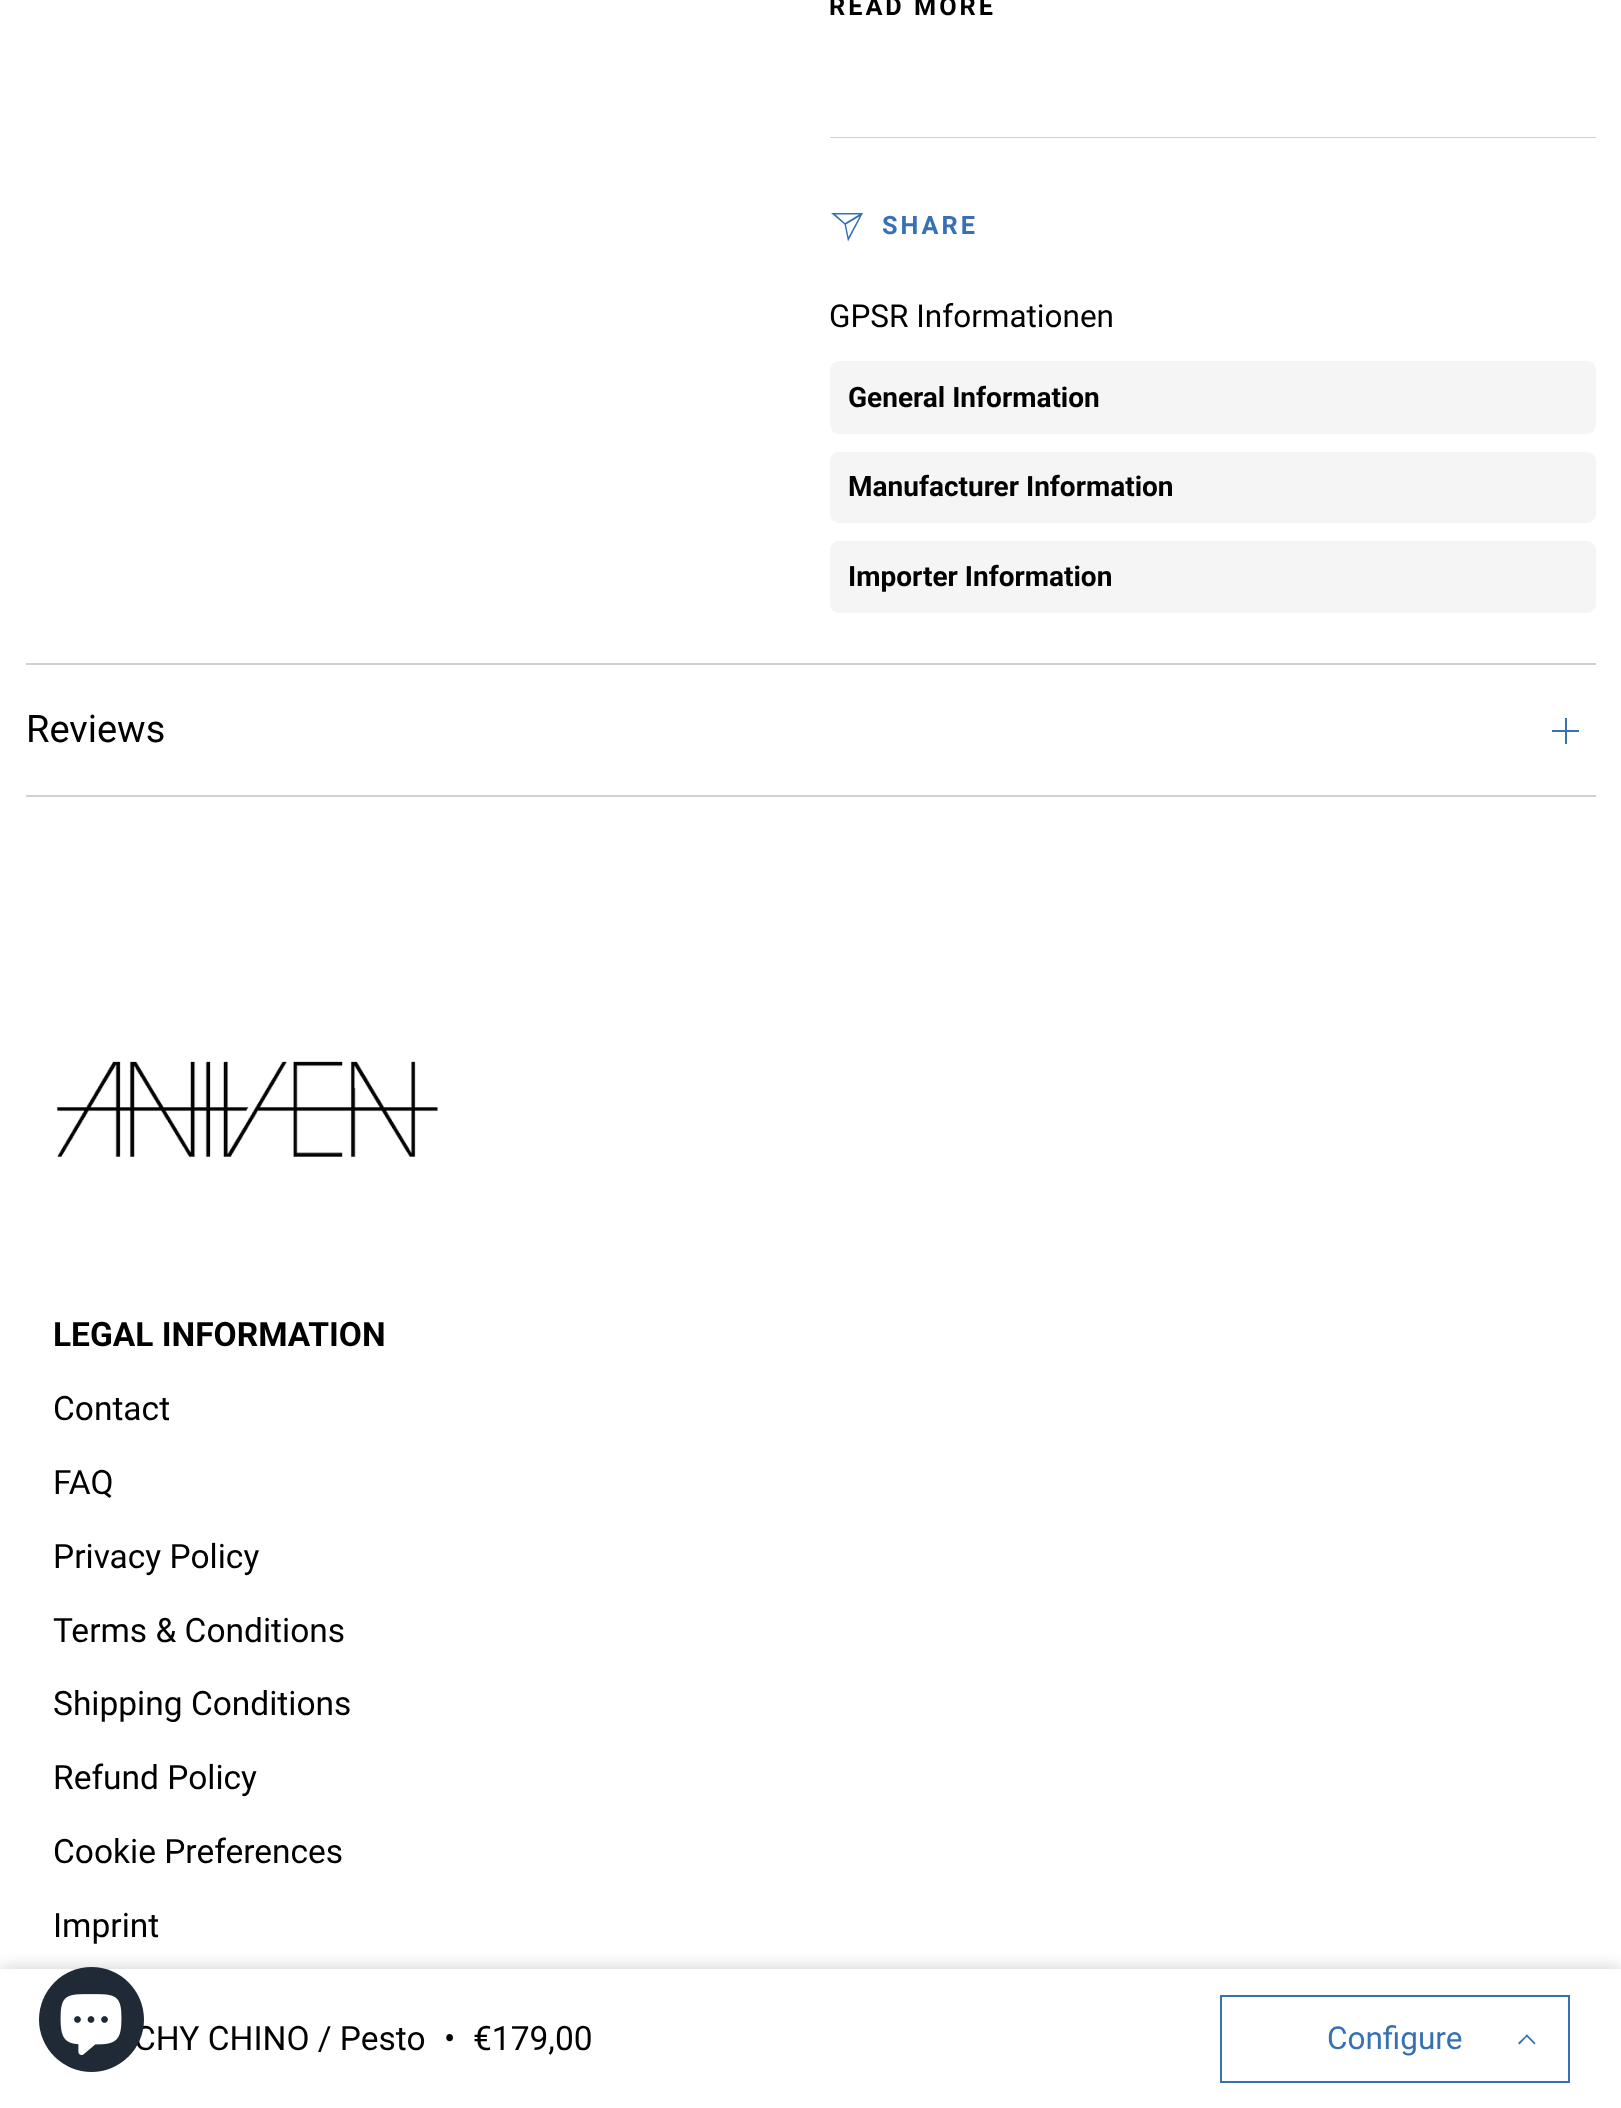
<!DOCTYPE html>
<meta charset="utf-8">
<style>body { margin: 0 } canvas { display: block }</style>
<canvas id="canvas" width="1621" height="2108"></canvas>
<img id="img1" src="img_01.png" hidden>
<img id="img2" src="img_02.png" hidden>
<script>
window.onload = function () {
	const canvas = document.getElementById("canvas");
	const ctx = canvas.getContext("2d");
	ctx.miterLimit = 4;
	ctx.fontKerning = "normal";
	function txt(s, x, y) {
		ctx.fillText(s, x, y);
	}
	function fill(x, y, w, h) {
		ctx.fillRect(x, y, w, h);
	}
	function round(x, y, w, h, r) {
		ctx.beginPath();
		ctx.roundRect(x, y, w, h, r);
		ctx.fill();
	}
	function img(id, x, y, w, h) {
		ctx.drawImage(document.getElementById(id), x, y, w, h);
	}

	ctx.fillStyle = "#FFFFFF";
	fill(0, 0, 1621, 2108);
	ctx.fillStyle = "#D4D0D0";
	fill(26, 663, 1570, 2);
	fill(26, 795, 1570, 2);
	ctx.fillStyle = "#3771B4";
	fill(1552, 730, 27, 2);
	fill(1565, 718, 2, 26);
	ctx.fillStyle = "#D4D0D0";
	fill(830, 137, 766, 1);
	ctx.fillStyle = "#3771B4";
	ctx.beginPath();
	ctx.moveTo(863, 213);
	ctx.lineTo(848, 241.5);
	ctx.lineTo(844.5, 224.5);
	ctx.lineTo(831, 213);
	ctx.closePath();
	ctx.moveTo(859, 214.5);
	ctx.lineTo(835.5, 214.5);
	ctx.lineTo(845, 223);
	ctx.closePath();
	ctx.moveTo(859.5, 216.5);
	ctx.lineTo(846, 224.5);
	ctx.lineTo(848.5, 237);
	ctx.closePath();
	ctx.fill();
	ctx.fillStyle = "#F5F5F5";
	round(830, 361, 766, 73, 9);
	round(830, 452, 766, 71, 9);
	round(830, 541, 766, 72, 9);
	ctx.fillStyle = "rgba(0, 0, 0, 0.2)";
	ctx.filter = "blur(9px)";
	ctx.beginPath();
	ctx.rect(0, 1969, 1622, 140);
	ctx.fill();
	ctx.filter = "none";
	ctx.fillStyle = "#FFFFFF";
	fill(0, 1969, 1621, 139);
	ctx.strokeStyle = "#3771B4";
	ctx.lineWidth = 2;
	ctx.strokeRect(1221, 1996, 348, 86);
	ctx.fillStyle = "#3771B4";
	ctx.beginPath();
	ctx.moveTo(1528, 2035.5);
	ctx.lineTo(1519.5, 2044.5);
	ctx.lineTo(1518, 2043);
	ctx.lineTo(1527, 2034.5);
	ctx.closePath();
	ctx.fill();
	ctx.beginPath();
	ctx.moveTo(1535.5, 2043);
	ctx.lineTo(1534.5, 2044.5);
	ctx.lineTo(1525.5, 2035.5);
	ctx.lineTo(1527, 2034.5);
	ctx.closePath();
	ctx.fill();
	img("img1", 56, 1061, 382, 96);
	ctx.font = "38px Roboto";
	ctx.fillStyle = "#000000";
	txt("Reviews", 26, 742);
	ctx.letterSpacing = "3px";
	ctx.font = "bold 25.25px Roboto";
	txt("READ MORE", 829, 15);
	ctx.fillStyle = "#3771B4";
	txt("SHARE", 882, 234);
	ctx.letterSpacing = "0px";
	ctx.font = "31.5px Roboto";
	ctx.fillStyle = "#000000";
	txt("GPSR Informationen", 829, 327);
	ctx.font = "bold 28px Roboto";
	txt("General Information", 848, 407);
	txt("Manufacturer Information", 848, 496);
	txt("Importer Information", 848, 586);
	ctx.font = "33.5px Roboto";
	txt("CHY CHINO / Pesto", 134, 2050);
	txt("•", 444, 2050);
	txt("€179,00", 473, 2050);
	ctx.font = "31.5px Roboto";
	ctx.fillStyle = "#3771B4";
	txt("Configure", 1327, 2049);
	ctx.font = "bold 33.5px Roboto";
	ctx.fillStyle = "#000000";
	txt("LEGAL INFORMATION", 53, 1346);
	ctx.font = "33.5px Roboto";
	txt("Contact", 53, 1420);
	txt("FAQ", 53, 1494);
	txt("Privacy Policy", 53, 1568);
	txt("Terms & Conditions", 53, 1642);
	txt("Shipping Conditions", 53, 1715);
	txt("Refund Policy", 53, 1789);
	txt("Cookie Preferences", 53, 1863);
	txt("Imprint", 53, 1937);
	ctx.fillStyle = "#202A36";
	ctx.beginPath();
	ctx.arc(91.5, 2019.5, 52.5, 0, Math.PI * 2);
	ctx.fill();
	img("img2", 60, 1994, 62, 61);
};
</script>
